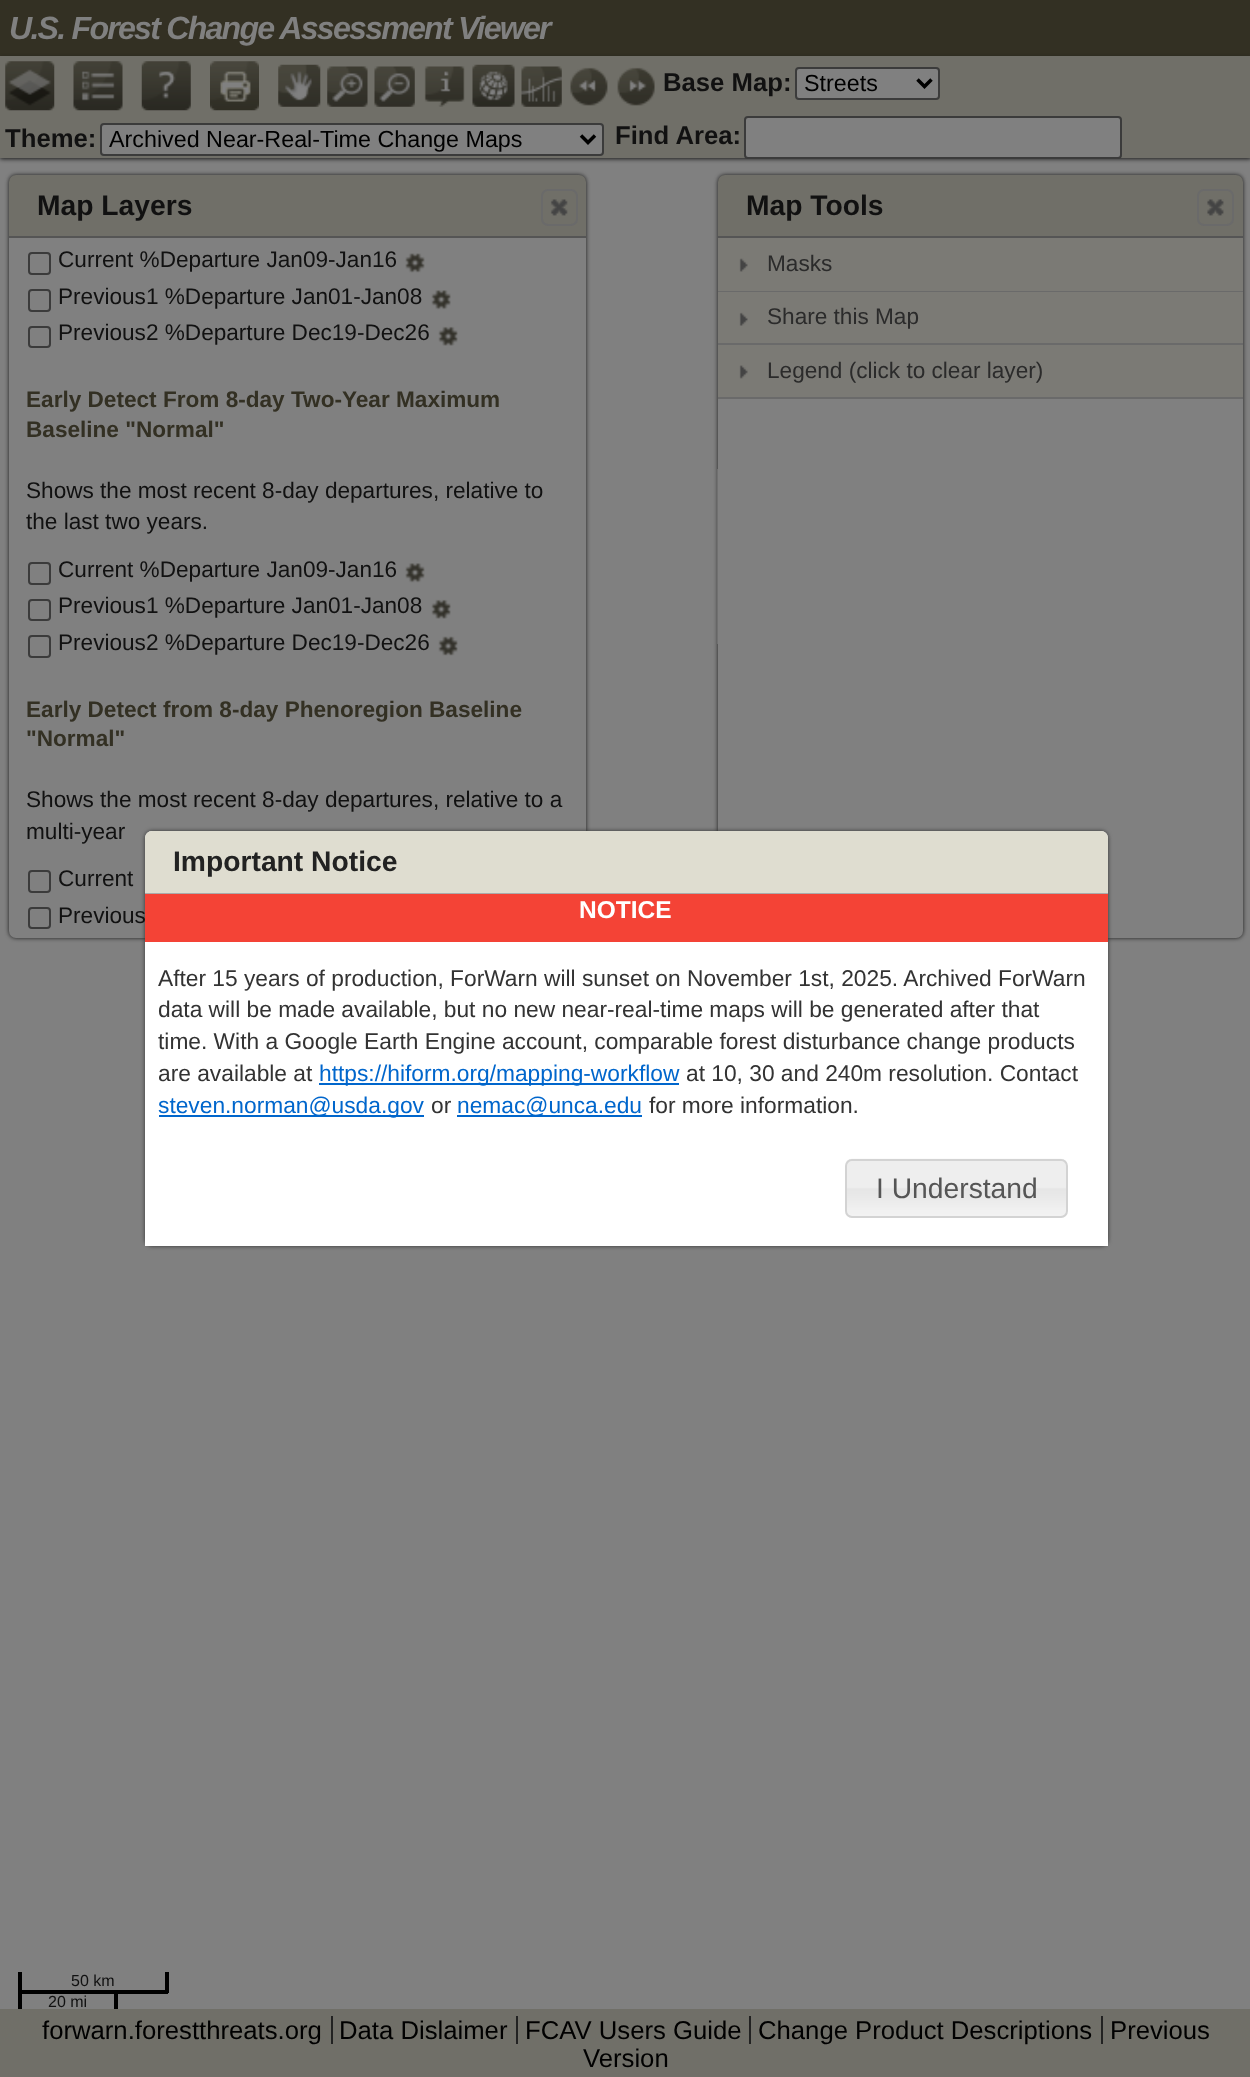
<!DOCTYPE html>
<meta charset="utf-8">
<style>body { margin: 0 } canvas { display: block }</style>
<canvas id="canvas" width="1250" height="2077"></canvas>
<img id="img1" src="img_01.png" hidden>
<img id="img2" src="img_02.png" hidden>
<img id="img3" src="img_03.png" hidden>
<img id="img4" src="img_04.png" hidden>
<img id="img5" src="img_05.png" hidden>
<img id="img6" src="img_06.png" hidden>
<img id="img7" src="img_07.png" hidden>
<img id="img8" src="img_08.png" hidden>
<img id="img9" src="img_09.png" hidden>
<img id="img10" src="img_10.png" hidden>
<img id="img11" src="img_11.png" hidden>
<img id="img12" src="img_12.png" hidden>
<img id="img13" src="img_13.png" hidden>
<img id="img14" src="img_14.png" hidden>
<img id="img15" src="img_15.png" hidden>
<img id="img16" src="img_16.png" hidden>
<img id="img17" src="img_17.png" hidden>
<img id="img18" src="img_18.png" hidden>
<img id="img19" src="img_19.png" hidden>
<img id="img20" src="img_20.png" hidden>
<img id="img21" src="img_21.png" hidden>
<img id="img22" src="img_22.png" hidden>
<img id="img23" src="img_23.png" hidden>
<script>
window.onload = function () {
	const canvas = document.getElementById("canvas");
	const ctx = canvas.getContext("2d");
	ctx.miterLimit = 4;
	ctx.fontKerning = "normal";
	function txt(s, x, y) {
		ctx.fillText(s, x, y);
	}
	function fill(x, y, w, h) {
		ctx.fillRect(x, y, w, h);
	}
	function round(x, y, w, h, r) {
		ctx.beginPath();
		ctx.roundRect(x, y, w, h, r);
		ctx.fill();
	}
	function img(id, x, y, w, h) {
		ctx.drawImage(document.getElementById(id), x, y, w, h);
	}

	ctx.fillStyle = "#808080";
	fill(0, 0, 1250, 2077);
	ctx.fillStyle = "#333023";
	fill(0, 0, 1250, 56);
	ctx.fillStyle = "#1A1A1A";
	ctx.filter = "blur(2px)";
	ctx.beginPath();
	ctx.rect(0, 58, 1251, 101);
	ctx.fill();
	ctx.filter = "none";
	ctx.fillStyle = "#706F68";
	fill(0, 56, 1250, 102);
	img("img1", 5, 61, 50, 50);
	img("img2", 73, 61, 50, 50);
	img("img3", 141, 61, 50, 50);
	img("img4", 210, 61, 49, 50);
	img("img5", 278, 64, 43, 43);
	img("img6", 327, 66, 41, 41);
	img("img7", 374, 66, 41, 41);
	img("img8", 424, 66, 41, 41);
	img("img9", 472, 64, 43, 43);
	img("img10", 521, 66, 41, 41);
	img("img11", 570, 67, 38, 39);
	img("img12", 617, 67, 38, 39);
	ctx.fillStyle = "#808080";
	ctx.beginPath();
	ctx.roundRect(796, 68, 143, 31, 3);
	ctx.fill();
	ctx.strokeStyle = "#3B3B3B";
	ctx.lineWidth = 2;
	ctx.stroke();
	ctx.beginPath();
	ctx.moveTo(917.5, 79.5);
	ctx.lineTo(924.5, 86.5);
	ctx.lineTo(931.5, 79.5);
	ctx.strokeStyle = "#000000";
	ctx.lineWidth = 3.5;
	ctx.stroke();
	ctx.beginPath();
	ctx.roundRect(101, 124, 502, 31, 3);
	ctx.fill();
	ctx.strokeStyle = "#3B3B3B";
	ctx.lineWidth = 2;
	ctx.stroke();
	ctx.beginPath();
	ctx.moveTo(581, 135.5);
	ctx.lineTo(588, 142.5);
	ctx.lineTo(595, 135.5);
	ctx.strokeStyle = "#000000";
	ctx.lineWidth = 3.5;
	ctx.stroke();
	ctx.beginPath();
	ctx.roundRect(745, 117, 376, 41, 3);
	ctx.fill();
	ctx.strokeStyle = "#3B3B3B";
	ctx.lineWidth = 2;
	ctx.stroke();
	ctx.fillStyle = "#1A1A1A";
	ctx.filter = "blur(2px)";
	ctx.beginPath();
	ctx.roundRect(9, 175, 577, 763, 7);
	ctx.fill();
	ctx.filter = "none";
	ctx.fillStyle = "#706F68";
	ctx.beginPath();
	ctx.roundRect(9, 175, 577, 63, [7, 7, 0, 0]);
	ctx.fill();
	ctx.fillStyle = "#555555";
	fill(9, 236, 577, 2);
	ctx.beginPath();
	ctx.roundRect(542, 190, 35, 35, 6);
	ctx.strokeStyle = "#6A6A6A";
	ctx.stroke();
	img("img13", 550, 199, 18, 17);
	ctx.fillStyle = "#808080";
	ctx.beginPath();
	ctx.roundRect(9, 238, 577, 700, [0, 0, 7, 7]);
	ctx.fill();
	ctx.beginPath();
	ctx.roundRect(29, 253, 21, 21, 3);
	ctx.strokeStyle = "#3B3B3B";
	ctx.stroke();
	img("img14", 405, 253, 20, 20);
	ctx.beginPath();
	ctx.roundRect(29, 290, 21, 21, 3);
	ctx.stroke();
	img("img15", 431, 290, 20, 20);
	ctx.beginPath();
	ctx.roundRect(29, 327, 21, 20, 3);
	ctx.stroke();
	img("img16", 438, 326, 20, 20);
	ctx.beginPath();
	ctx.roundRect(29, 563, 21, 21, 3);
	ctx.stroke();
	img("img17", 405, 563, 20, 20);
	ctx.beginPath();
	ctx.roundRect(29, 600, 21, 20, 3);
	ctx.stroke();
	img("img16", 431, 599, 20, 20);
	ctx.beginPath();
	ctx.roundRect(29, 636, 21, 21, 3);
	ctx.stroke();
	img("img18", 438, 636, 20, 20);
	ctx.beginPath();
	ctx.roundRect(29, 871, 21, 21, 3);
	ctx.stroke();
	ctx.beginPath();
	ctx.roundRect(29, 908, 21, 20, 3);
	ctx.stroke();
	ctx.fillStyle = "#1A1A1A";
	ctx.filter = "blur(2px)";
	ctx.beginPath();
	ctx.roundRect(718, 175, 525, 763, 7);
	ctx.fill();
	ctx.filter = "none";
	ctx.fillStyle = "#707070";
	fill(717, 469, 1, 175);
	ctx.fillStyle = "#706F68";
	ctx.beginPath();
	ctx.roundRect(718, 175, 525, 63, [7, 7, 0, 0]);
	ctx.fill();
	ctx.fillStyle = "#555555";
	fill(718, 236, 525, 2);
	ctx.beginPath();
	ctx.roundRect(1198, 190, 35, 35, 6);
	ctx.strokeStyle = "#6A6A6A";
	ctx.stroke();
	img("img19", 1207, 199, 17, 17);
	ctx.fillStyle = "#808080";
	ctx.beginPath();
	ctx.roundRect(718, 238, 525, 700, [0, 0, 7, 7]);
	ctx.fill();
	ctx.fillStyle = "#7B7A75";
	fill(718, 238, 525, 53);
	ctx.fillStyle = "#6A6A6A";
	fill(718, 291, 525, 1);
	img("img20", 739, 258, 9, 14);
	ctx.fillStyle = "#7B7A75";
	fill(718, 292, 525, 51);
	ctx.fillStyle = "#6A6A6A";
	fill(718, 343, 525, 2);
	img("img21", 739, 312, 9, 14);
	ctx.fillStyle = "#7B7A75";
	fill(718, 345, 525, 52);
	ctx.fillStyle = "#6A6A6A";
	fill(718, 397, 525, 2);
	img("img22", 739, 365, 9, 14);
	ctx.fillStyle = "#333333";
	ctx.filter = "blur(2px)";
	ctx.beginPath();
	ctx.roundRect(145, 831, 963, 415, 7);
	ctx.fill();
	ctx.filter = "none";
	ctx.fillStyle = "#FFFFFF";
	round(145, 831, 963, 415, 7);
	ctx.fillStyle = "#DFDDD0";
	ctx.beginPath();
	ctx.roundRect(145, 831, 963, 63, [7, 7, 0, 0]);
	ctx.fill();
	ctx.fillStyle = "#AAAAAA";
	fill(145, 893, 963, 1);
	ctx.fillStyle = "#F44336";
	fill(145, 894, 963, 48);
	ctx.fillStyle = "#0066CC";
	fill(319, 1083, 360, 2);
	fill(159, 1115, 265, 2);
	fill(457, 1115, 185, 2);
	ctx.fillStyle = "#FFFFFF";
	fill(145, 1239, 963, 7);
	img("img23", 845, 1158, 222, 60);
	ctx.beginPath();
	ctx.roundRect(846, 1160, 221, 57, 6);
	ctx.strokeStyle = "#D3D3D3";
	ctx.stroke();
	ctx.fillStyle = "#000000";
	fill(165, 1972, 4, 21);
	fill(18, 1990, 150, 4);
	fill(18, 1972, 4, 39);
	fill(114, 1990, 4, 21);
	ctx.fillStyle = "#706F68";
	fill(0, 2009, 1250, 68);
	ctx.fillStyle = "#222222";
	fill(331, 2016, 2, 28);
	fill(516, 2016, 2, 28);
	fill(749, 2016, 2, 28);
	fill(1101, 2016, 2, 28);
	ctx.letterSpacing = "-1.75px";
	ctx.font = "italic bold 32.1px Liberation Sans";
	ctx.fillStyle = "#808080";
	txt("U.S. Forest Change Assessment Viewer", 9, 39);
	ctx.letterSpacing = "0px";
	ctx.font = "bold 25.7px Liberation Sans";
	ctx.fillStyle = "#111111";
	txt("Base Map:", 663, 91);
	ctx.font = "23.3px Liberation Sans";
	ctx.fillStyle = "#000000";
	txt("Streets", 804, 91);
	ctx.font = "bold 25.7px Liberation Sans";
	ctx.fillStyle = "#111111";
	txt("Theme:", 5, 147);
	ctx.font = "23.3px Liberation Sans";
	ctx.fillStyle = "#000000";
	txt("Archived Near-Real-Time Change Maps", 109, 147);
	ctx.font = "bold 25.7px Liberation Sans";
	ctx.fillStyle = "#111111";
	txt("Find Area:", 615, 144);
	ctx.font = "bold 28.25px Liberation Sans";
	txt("Map Layers", 37, 215);
	ctx.font = "22.6px Liberation Sans";
	txt("Current %Departure Jan09-Jan16", 58, 267);
	txt("Previous1 %Departure Jan01-Jan08", 58, 304);
	txt("Previous2 %Departure Dec19-Dec26", 58, 340);
	ctx.font = "bold 22.6px Liberation Sans";
	ctx.fillStyle = "#333023";
	txt("Early Detect From 8-day Two-Year Maximum", 26, 407);
	txt("Baseline \"Normal\"", 26, 437);
	ctx.font = "22.6px Liberation Sans";
	ctx.fillStyle = "#111111";
	txt("Shows the most recent 8-day departures, relative to", 26, 498);
	txt("the last two years.", 26, 529);
	txt("Current %Departure Jan09-Jan16", 58, 577);
	txt("Previous1 %Departure Jan01-Jan08", 58, 613);
	txt("Previous2 %Departure Dec19-Dec26", 58, 650);
	ctx.font = "bold 22.6px Liberation Sans";
	ctx.fillStyle = "#333023";
	txt("Early Detect from 8-day Phenoregion Baseline", 26, 717);
	txt("\"Normal\"", 26, 746);
	ctx.font = "22.6px Liberation Sans";
	ctx.fillStyle = "#111111";
	txt("Shows the most recent 8-day departures, relative to a", 26, 807);
	txt("multi-year", 26, 839);
	txt("Current", 58, 886);
	txt("Previous", 58, 923);
	ctx.font = "bold 28.25px Liberation Sans";
	txt("Map Tools", 746, 215);
	ctx.font = "22.6px Liberation Sans";
	ctx.fillStyle = "#2B2B2B";
	txt("Masks", 767, 271);
	txt("Share this Map", 767, 324);
	txt("Legend (click to clear layer)", 767, 378);
	ctx.font = "bold 28.25px Liberation Sans";
	ctx.fillStyle = "#222222";
	txt("Important Notice", 173, 871);
	ctx.font = "bold 24.5px Liberation Sans";
	ctx.fillStyle = "#FFFFFF";
	txt("NOTICE", 579, 918);
	ctx.font = "22.75px Liberation Sans";
	ctx.fillStyle = "#333333";
	txt("After 15 years of production, ForWarn will sunset on November 1st, 2025. Archived ForWarn", 158, 986);
	txt("data will be made available, but no new near-real-time maps will be generated after that", 158, 1017);
	txt("time. With a Google Earth Engine account, comparable forest disturbance change products", 158, 1049);
	txt("are available at", 158, 1081);
	ctx.fillStyle = "#0066CC";
	txt("https://hiform.org/mapping-workflow", 319, 1081);
	ctx.fillStyle = "#333333";
	txt("at 10, 30 and 240m resolution. Contact", 686, 1081);
	ctx.fillStyle = "#0066CC";
	txt("steven.norman@usda.gov", 158, 1113);
	ctx.fillStyle = "#333333";
	txt("or", 431, 1113);
	ctx.fillStyle = "#0066CC";
	txt("nemac@unca.edu", 457, 1113);
	ctx.fillStyle = "#333333";
	txt("for more information.", 649, 1113);
	ctx.font = "28.25px Liberation Sans";
	ctx.fillStyle = "#555555";
	txt("I Understand", 876, 1198);
	ctx.font = "16px Liberation Sans";
	ctx.fillStyle = "#111111";
	txt("50 km", 71, 1986);
	txt("20 mi", 48, 2007);
	ctx.font = "25.7px Liberation Sans";
	ctx.fillStyle = "#000000";
	txt("forwarn.forestthreats.org", 42, 2039);
	txt("Data Dislaimer", 339, 2039);
	txt("FCAV Users Guide", 525, 2039);
	txt("Change Product Descriptions", 758, 2039);
	txt("Previous", 1110, 2039);
	txt("Version", 583, 2067);
};
</script>
